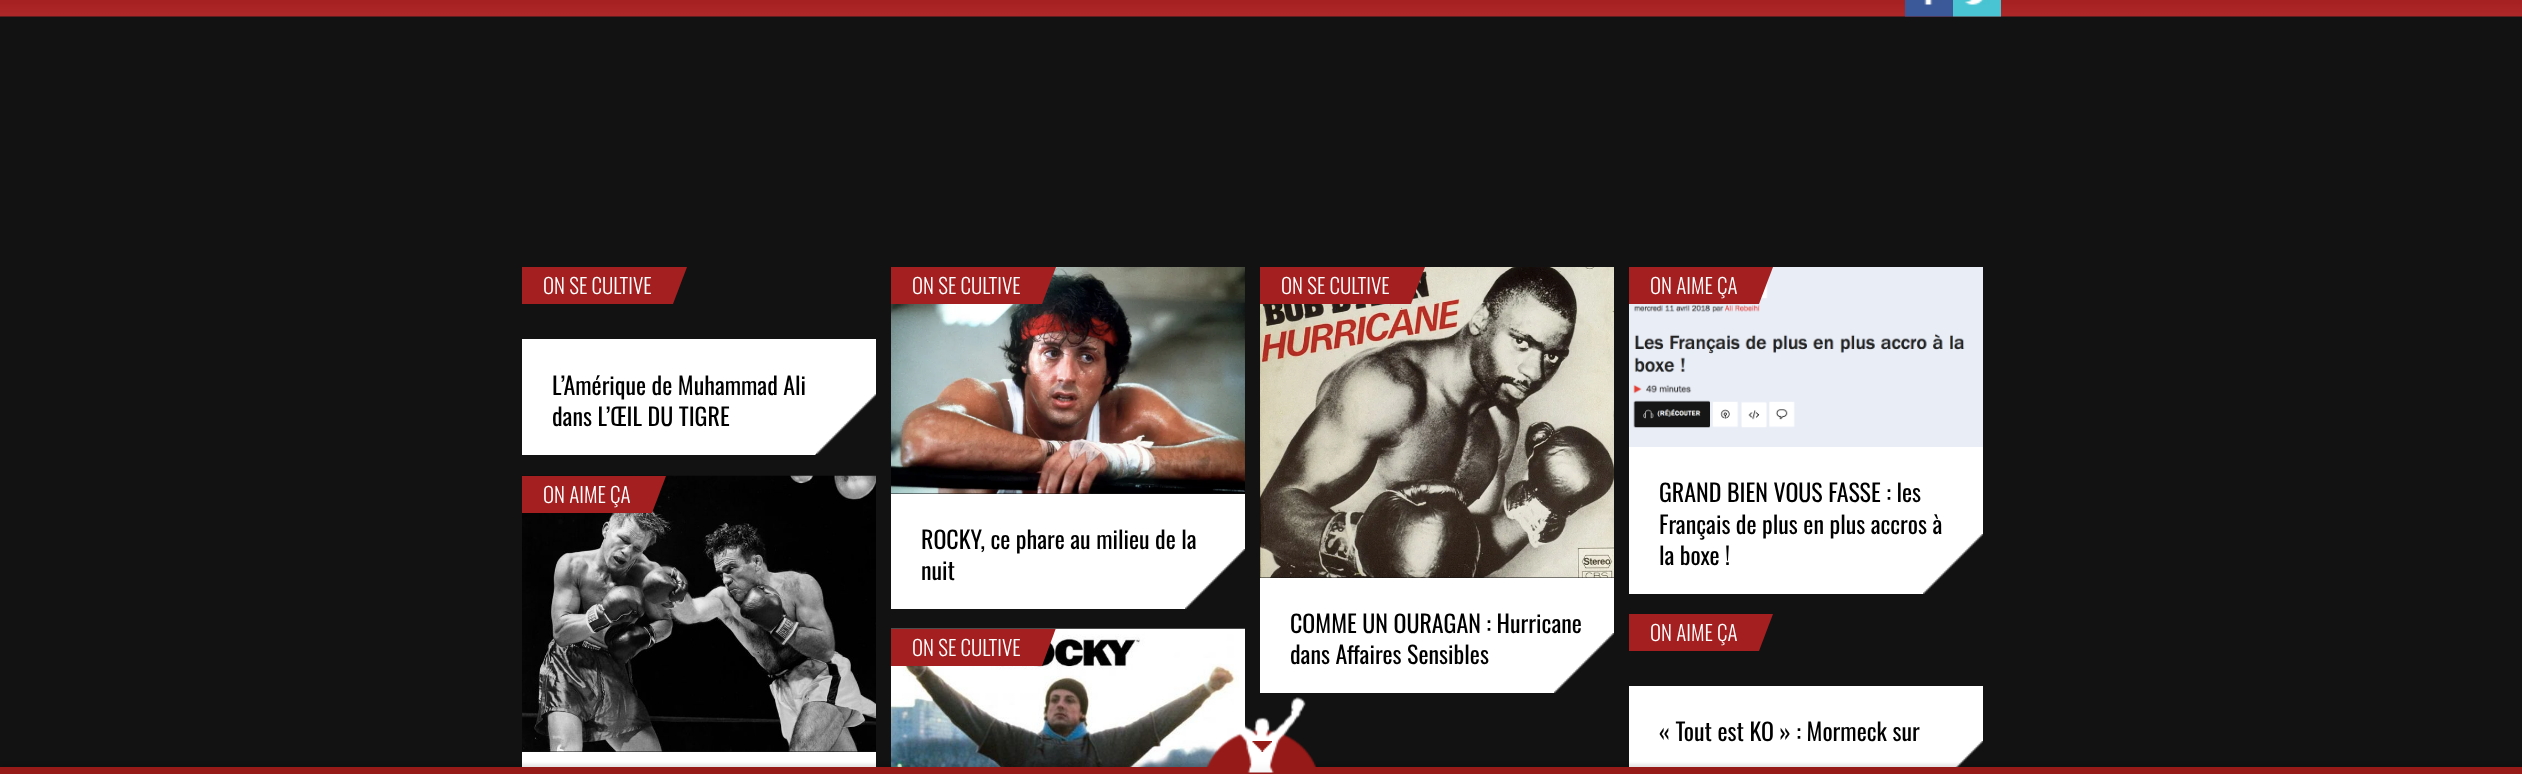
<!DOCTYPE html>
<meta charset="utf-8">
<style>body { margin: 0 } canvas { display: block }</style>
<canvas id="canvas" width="2522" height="774"></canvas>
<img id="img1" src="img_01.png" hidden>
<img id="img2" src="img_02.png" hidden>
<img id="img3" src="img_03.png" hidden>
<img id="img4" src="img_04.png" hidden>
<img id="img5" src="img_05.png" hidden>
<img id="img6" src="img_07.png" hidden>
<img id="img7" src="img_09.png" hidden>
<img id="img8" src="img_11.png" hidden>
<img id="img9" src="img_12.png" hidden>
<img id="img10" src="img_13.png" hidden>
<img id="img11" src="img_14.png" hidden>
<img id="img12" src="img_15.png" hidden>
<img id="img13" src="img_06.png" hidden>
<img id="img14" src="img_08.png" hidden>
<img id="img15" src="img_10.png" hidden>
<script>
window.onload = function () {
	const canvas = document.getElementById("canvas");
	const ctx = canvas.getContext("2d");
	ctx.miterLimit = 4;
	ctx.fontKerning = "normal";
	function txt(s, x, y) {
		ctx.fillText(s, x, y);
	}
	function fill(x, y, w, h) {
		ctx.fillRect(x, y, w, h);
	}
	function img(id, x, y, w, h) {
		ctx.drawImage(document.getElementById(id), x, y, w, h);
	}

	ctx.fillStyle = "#121212";
	fill(0, 0, 2522, 774);
	img("img1", 0, 0, 2522, 17);
	img("img2", 1905, 0, 48, 17);
	img("img3", 1953, 0, 48, 17);
	ctx.save();
	ctx.beginPath();
	ctx.rect(522, 267, 354, 188);
	ctx.clip();
	ctx.fillStyle = "#A41F20";
	ctx.beginPath();
	ctx.moveTo(521, 267);
	ctx.lineTo(687, 267);
	ctx.lineTo(673, 304);
	ctx.lineTo(508, 304);
	ctx.closePath();
	ctx.fill();
	ctx.restore();
	ctx.fillStyle = "#FFFFFF";
	fill(522, 339, 354, 93);
	fill(522, 432, 319, 23);
	img("img4", 816, 394, 60, 60);
	ctx.save();
	ctx.beginPath();
	ctx.rect(522, 267, 354, 188);
	ctx.clip();
	ctx.fillStyle = "#121212";
	ctx.beginPath();
	ctx.moveTo(876, 514);
	ctx.lineTo(760, 514);
	ctx.lineTo(816, 454);
	ctx.lineTo(876, 454);
	ctx.closePath();
	ctx.fill();
	ctx.restore();
	img("img5", 891, 267, 354, 227);
	ctx.save();
	ctx.beginPath();
	ctx.rect(891, 267, 354, 342);
	ctx.clip();
	ctx.fillStyle = "#A41F20";
	ctx.beginPath();
	ctx.moveTo(890, 267);
	ctx.lineTo(1056, 267);
	ctx.lineTo(1042, 304);
	ctx.lineTo(877, 304);
	ctx.closePath();
	ctx.fill();
	ctx.restore();
	fill(891, 494, 354, 93);
	fill(891, 587, 317, 22);
	img("img6", 1260, 267, 354, 311);
	ctx.save();
	ctx.beginPath();
	ctx.rect(1260, 267, 354, 426);
	ctx.clip();
	ctx.fillStyle = "#A41F20";
	ctx.beginPath();
	ctx.moveTo(1259, 267);
	ctx.lineTo(1425, 267);
	ctx.lineTo(1411, 304);
	ctx.lineTo(1246, 304);
	ctx.closePath();
	ctx.fill();
	ctx.restore();
	fill(1260, 578, 354, 93);
	fill(1260, 671, 317, 22);
	img("img7", 1629, 267, 354, 180);
	ctx.save();
	ctx.beginPath();
	ctx.rect(1629, 267, 354, 327);
	ctx.clip();
	ctx.fillStyle = "#A41F20";
	ctx.beginPath();
	ctx.moveTo(1628, 267);
	ctx.lineTo(1773, 267);
	ctx.lineTo(1759, 304);
	ctx.lineTo(1615, 304);
	ctx.closePath();
	ctx.fill();
	ctx.restore();
	fill(1629, 447, 354, 125);
	fill(1629, 572, 317, 22);
	img("img8", 522, 475, 354, 277);
	ctx.save();
	ctx.beginPath();
	ctx.rect(522, 476, 354, 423);
	ctx.clip();
	ctx.fillStyle = "#A41F20";
	ctx.beginPath();
	ctx.moveTo(521, 476);
	ctx.lineTo(666, 476);
	ctx.lineTo(652, 513);
	ctx.lineTo(508, 513);
	ctx.closePath();
	ctx.fill();
	ctx.restore();
	fill(522, 752, 354, 15);
	img("img9", 891, 628, 354, 139);
	ctx.save();
	ctx.beginPath();
	ctx.rect(891, 629, 354, 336);
	ctx.clip();
	ctx.fillStyle = "#A41F20";
	ctx.beginPath();
	ctx.moveTo(890, 628);
	ctx.lineTo(1056, 628);
	ctx.lineTo(1042, 666);
	ctx.lineTo(877, 666);
	ctx.closePath();
	ctx.fill();
	ctx.restore();
	ctx.save();
	ctx.beginPath();
	ctx.rect(1629, 614, 354, 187);
	ctx.clip();
	ctx.fillStyle = "#A41F20";
	ctx.beginPath();
	ctx.moveTo(1628, 614);
	ctx.lineTo(1773, 614);
	ctx.lineTo(1759, 651);
	ctx.lineTo(1615, 651);
	ctx.closePath();
	ctx.fill();
	ctx.restore();
	fill(1629, 686, 354, 81);
	img("img10", 1955, 741, 28, 26);
	ctx.fillStyle = "rgba(0, 0, 0, 0.1)";
	ctx.filter = "blur(1.5px)";
	ctx.beginPath();
	ctx.rect(0, 764, 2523, 7);
	ctx.fill();
	ctx.filter = "none";
	ctx.fillStyle = "#961A18";
	fill(0, 767, 2522, 7);
	img("img11", 1206, 697, 111, 76);
	img("img12", 1252, 741, 20, 11);
	ctx.font = "300 21px Oswald";
	ctx.fillStyle = "#FFFFFF";
	txt("ON SE CULTIVE", 543, 294);
	ctx.font = "24px Oswald";
	ctx.fillStyle = "#000000";
	txt("L’Amérique de Muhammad Ali", 552, 395);
	txt("dans L’ŒIL DU TIGRE", 552, 426);
	ctx.font = "300 21px Oswald";
	ctx.fillStyle = "#FFFFFF";
	txt("ON SE CULTIVE", 912, 294);
	ctx.font = "24px Oswald";
	ctx.fillStyle = "#000000";
	txt("ROCKY, ce phare au milieu de la", 921, 549);
	txt("nuit", 921, 580);
	img("img13", 1185, 549, 60, 60);
	ctx.font = "300 21px Oswald";
	ctx.fillStyle = "#FFFFFF";
	txt("ON SE CULTIVE", 1281, 294);
	ctx.font = "24px Oswald";
	ctx.fillStyle = "#000000";
	txt("COMME UN OURAGAN : Hurricane", 1290, 633);
	txt("dans Affaires Sensibles", 1290, 664);
	img("img14", 1554, 633, 60, 60);
	ctx.font = "300 21px Oswald";
	ctx.fillStyle = "#FFFFFF";
	txt("ON AIME ÇA", 1650, 294);
	ctx.font = "24px Oswald";
	ctx.fillStyle = "#000000";
	txt("GRAND BIEN VOUS FASSE : les", 1659, 502);
	txt("Français de plus en plus accros à", 1659, 534);
	txt("la boxe !", 1659, 565);
	img("img15", 1923, 534, 60, 60);
	ctx.font = "300 21px Oswald";
	ctx.fillStyle = "#FFFFFF";
	txt("ON AIME ÇA", 543, 503);
	txt("ON SE CULTIVE", 912, 656);
	txt("ON AIME ÇA", 1650, 641);
	ctx.font = "24px Oswald";
	ctx.fillStyle = "#000000";
	txt("« Tout est KO » : Mormeck sur", 1659, 741);
};
</script>
